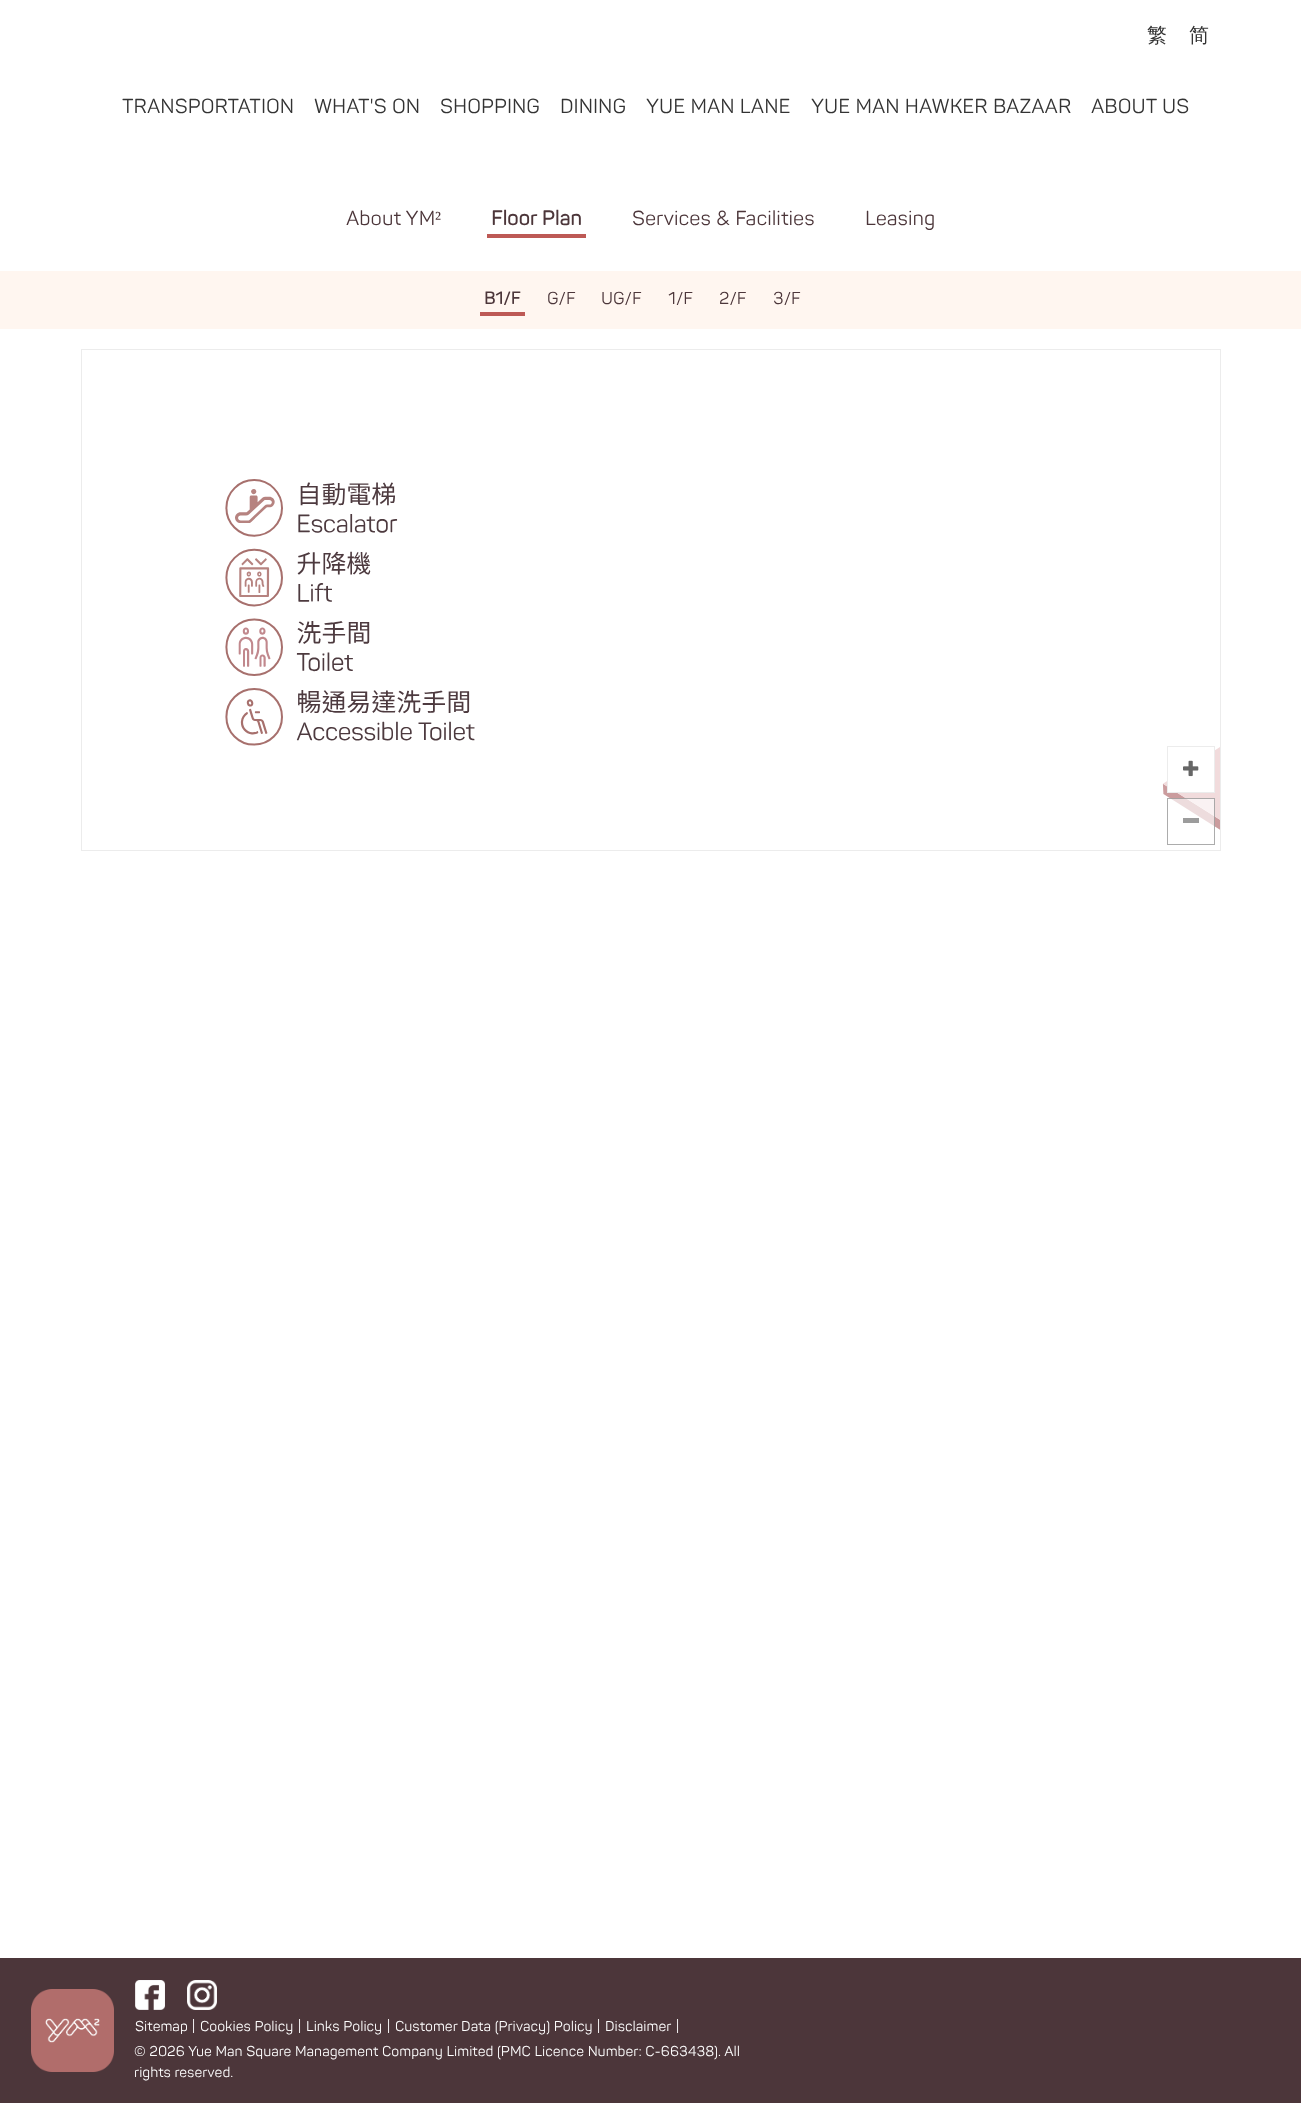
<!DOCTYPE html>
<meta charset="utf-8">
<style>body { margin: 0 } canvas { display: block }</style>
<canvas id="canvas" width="1301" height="2103"></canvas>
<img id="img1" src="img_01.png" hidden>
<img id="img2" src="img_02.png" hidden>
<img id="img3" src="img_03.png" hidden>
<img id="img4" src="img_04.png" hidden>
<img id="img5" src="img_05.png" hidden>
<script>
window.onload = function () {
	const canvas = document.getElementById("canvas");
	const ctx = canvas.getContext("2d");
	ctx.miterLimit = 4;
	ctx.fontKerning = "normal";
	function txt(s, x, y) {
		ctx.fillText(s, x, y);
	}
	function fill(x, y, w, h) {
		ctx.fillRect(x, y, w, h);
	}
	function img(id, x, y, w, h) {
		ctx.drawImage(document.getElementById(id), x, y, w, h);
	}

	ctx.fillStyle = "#FFFFFF";
	fill(0, 0, 1301, 2103);
	ctx.fillStyle = "#BD5955";
	fill(487, 234, 99, 4);
	ctx.fillStyle = "#FFF6F0";
	fill(0, 271, 1301, 58);
	ctx.fillStyle = "#BD5955";
	fill(480, 312, 45, 4);
	ctx.strokeStyle = "#ECECEC";
	ctx.strokeRect(81.5, 349.5, 1139, 501);
	img("img1", 225, 479, 995, 351);
	ctx.fillStyle = "#FFFFFF";
	fill(1168, 751, 46, 41);
	ctx.strokeRect(1167.5, 746.5, 47, 46);
	img("img2", 1183, 760, 16, 17);
	ctx.fillStyle = "rgba(255, 255, 255, 0.65)";
	fill(1170, 798, 45, 29);
	ctx.strokeStyle = "rgba(128, 128, 128, 0.65)";
	ctx.strokeRect(1167.5, 798.5, 47, 46);
	ctx.fillStyle = "#9C9C9C";
	fill(1183, 818, 16, 5);
	ctx.fillStyle = "#4C363A";
	fill(0, 1958, 1301, 145);
	img("img3", 31, 1989, 83, 83);
	img("img4", 135, 1980, 30, 30);
	img("img5", 187, 1980, 30, 30);
	ctx.font = "500 20px WenQuanYi Zen Hei";
	ctx.fillStyle = "#333333";
	txt("繁", 1147, 42);
	txt("简", 1189, 42);
	ctx.font = "20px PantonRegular";
	txt("TRANSPORTATION", 122, 113);
	txt("WHAT'S ON", 314, 113);
	txt("SHOPPING", 440, 113);
	txt("DINING", 560, 113);
	txt("YUE MAN LANE", 646, 113);
	txt("YUE MAN HAWKER BAZAAR", 811, 113);
	txt("ABOUT US", 1091, 113);
	ctx.fillStyle = "#4C363A";
	txt("About YM", 346, 225);
	ctx.font = "20px Liberation Serif";
	txt("²", 435, 225);
	ctx.font = "bold 20px PantonRegular";
	txt("Floor Plan", 491, 225);
	ctx.font = "20px PantonRegular";
	txt("Services & Facilities", 632, 225);
	txt("Leasing", 865, 225);
	ctx.font = "bold 17px PantonRegular";
	txt("B1/F", 484, 304);
	ctx.font = "17px PantonRegular";
	txt("G/F", 547, 304);
	txt("UG/F", 601, 304);
	txt("1/F", 668, 304);
	txt("2/F", 719, 304);
	txt("3/F", 773, 304);
	ctx.font = "14px PantonRegular";
	ctx.fillStyle = "#FFFFFF";
	txt("Sitemap", 135, 2031);
	txt("|", 192, 2031);
	txt("Cookies Policy", 200, 2031);
	txt("|", 298, 2031);
	txt("Links Policy", 306, 2031);
	txt("|", 387, 2031);
	txt("Customer Data (Privacy) Policy", 395, 2031);
	txt("|", 597, 2031);
	txt("Disclaimer", 605, 2031);
	txt("|", 676, 2031);
	txt("© 2026 Yue Man Square Management Company Limited (PMC Licence Number: C-663438). All", 134, 2056);
	txt("rights reserved.", 134, 2077);
};
</script>
